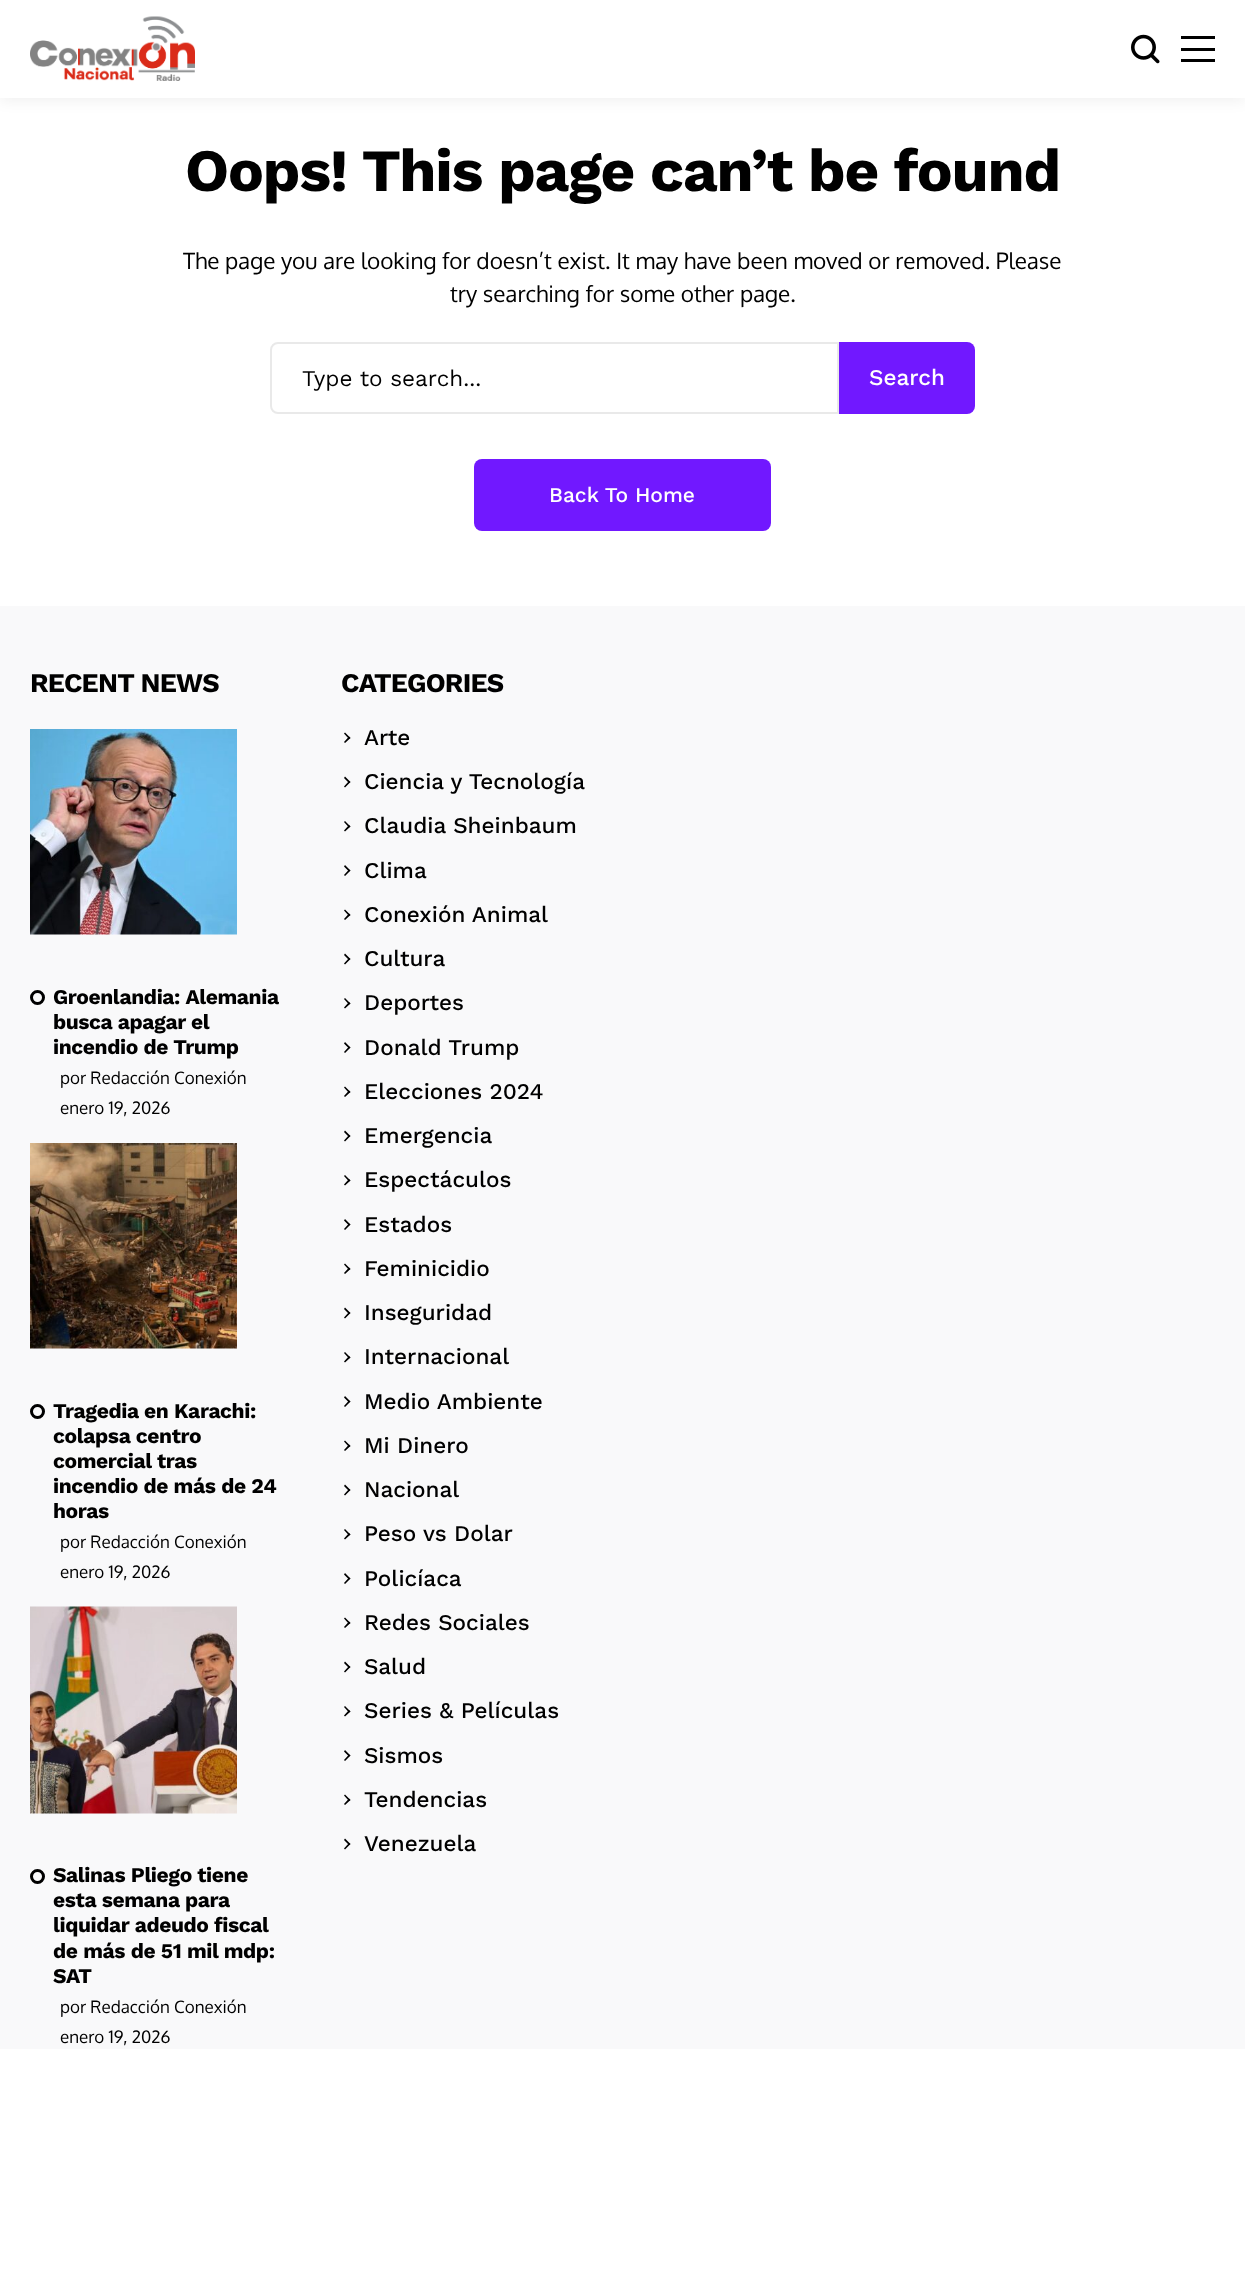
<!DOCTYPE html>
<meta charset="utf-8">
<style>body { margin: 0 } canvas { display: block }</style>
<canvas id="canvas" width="1245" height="2277"></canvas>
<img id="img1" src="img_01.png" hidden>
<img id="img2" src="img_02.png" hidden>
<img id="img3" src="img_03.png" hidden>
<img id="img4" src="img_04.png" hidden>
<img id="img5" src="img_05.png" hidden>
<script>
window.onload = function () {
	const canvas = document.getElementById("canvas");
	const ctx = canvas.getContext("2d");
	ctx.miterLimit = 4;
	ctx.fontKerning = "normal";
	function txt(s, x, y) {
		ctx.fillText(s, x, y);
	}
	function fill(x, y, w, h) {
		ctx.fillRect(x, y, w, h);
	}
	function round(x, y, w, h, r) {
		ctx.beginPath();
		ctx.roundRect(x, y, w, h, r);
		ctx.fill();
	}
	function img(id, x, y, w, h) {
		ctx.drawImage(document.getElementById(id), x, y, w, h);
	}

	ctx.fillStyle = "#FFFFFF";
	fill(0, 0, 1245, 2277);
	ctx.fillStyle = "rgba(0, 0, 0, 0.06)";
	ctx.filter = "blur(7px)";
	ctx.beginPath();
	ctx.rect(0, 3, 1245, 98);
	ctx.fill();
	ctx.filter = "none";
	ctx.fillStyle = "#FFFFFF";
	fill(0, 0, 1245, 98);
	img("img1", 30, 16, 165, 65);
	img("img2", 1131, 34, 29, 30);
	ctx.fillStyle = "#000000";
	fill(1181, 36, 34, 3);
	fill(1181, 48, 34, 3);
	fill(1181, 59, 34, 3);
	ctx.beginPath();
	ctx.roundRect(271, 343, 567, 70, [7, 0, 0, 7]);
	ctx.strokeStyle = "#E9E9E9";
	ctx.lineWidth = 2;
	ctx.stroke();
	ctx.fillStyle = "#7118FF";
	ctx.beginPath();
	ctx.roundRect(839, 342, 136, 72, [0, 8, 8, 0]);
	ctx.fill();
	round(474, 459, 297, 72, 8);
	ctx.fillStyle = "#F9F9FA";
	fill(0, 606, 1245, 1443);
	img("img3", 30, 729, 207, 206);
	ctx.beginPath();
	ctx.arc(37.5, 997.5, 6, 0, Math.PI * 2);
	ctx.strokeStyle = "#000000";
	ctx.lineWidth = 3;
	ctx.stroke();
	img("img4", 30, 1143, 207, 206);
	ctx.beginPath();
	ctx.arc(37.5, 1411.5, 6, 0, Math.PI * 2);
	ctx.stroke();
	img("img5", 30, 1606, 207, 208);
	ctx.beginPath();
	ctx.arc(37.5, 1876.5, 6, 0, Math.PI * 2);
	ctx.stroke();
	ctx.fillStyle = "#000000";
	ctx.beginPath();
	ctx.moveTo(344, 733.5);
	ctx.lineTo(345, 732.5);
	ctx.lineTo(350.5, 738);
	ctx.lineTo(349, 739);
	ctx.closePath();
	ctx.fill();
	ctx.beginPath();
	ctx.moveTo(344, 742);
	ctx.lineTo(349, 736.5);
	ctx.lineTo(350.5, 738);
	ctx.lineTo(345, 743);
	ctx.closePath();
	ctx.moveTo(344, 778);
	ctx.lineTo(345, 776.5);
	ctx.lineTo(350.5, 782);
	ctx.lineTo(349, 783);
	ctx.closePath();
	ctx.fill();
	ctx.beginPath();
	ctx.moveTo(344, 786.5);
	ctx.lineTo(349, 781);
	ctx.lineTo(350.5, 782);
	ctx.lineTo(345, 787.5);
	ctx.closePath();
	ctx.moveTo(344, 822);
	ctx.lineTo(345, 821);
	ctx.lineTo(350.5, 826.5);
	ctx.lineTo(349, 827.5);
	ctx.closePath();
	ctx.fill();
	ctx.beginPath();
	ctx.moveTo(344, 830.5);
	ctx.lineTo(349, 825);
	ctx.lineTo(350.5, 826.5);
	ctx.lineTo(345, 831.5);
	ctx.closePath();
	ctx.moveTo(344, 866.5);
	ctx.lineTo(345, 865);
	ctx.lineTo(350.5, 870.5);
	ctx.lineTo(349, 871.5);
	ctx.closePath();
	ctx.fill();
	ctx.beginPath();
	ctx.moveTo(344, 875);
	ctx.lineTo(349, 869.5);
	ctx.lineTo(350.5, 870.5);
	ctx.lineTo(345, 876);
	ctx.closePath();
	ctx.moveTo(344, 910.5);
	ctx.lineTo(345, 909.5);
	ctx.lineTo(350.5, 915);
	ctx.lineTo(349, 916);
	ctx.closePath();
	ctx.fill();
	ctx.beginPath();
	ctx.moveTo(344, 919);
	ctx.lineTo(349, 913.5);
	ctx.lineTo(350.5, 915);
	ctx.lineTo(345, 920);
	ctx.closePath();
	ctx.moveTo(344, 955);
	ctx.lineTo(345, 953.5);
	ctx.lineTo(350.5, 959);
	ctx.lineTo(349, 960);
	ctx.closePath();
	ctx.fill();
	ctx.beginPath();
	ctx.moveTo(344, 963.5);
	ctx.lineTo(349, 958);
	ctx.lineTo(350.5, 959);
	ctx.lineTo(345, 964.5);
	ctx.closePath();
	ctx.moveTo(344, 999);
	ctx.lineTo(345, 998);
	ctx.lineTo(350.5, 1003.5);
	ctx.lineTo(349, 1004.5);
	ctx.closePath();
	ctx.fill();
	ctx.beginPath();
	ctx.moveTo(344, 1007.5);
	ctx.lineTo(349, 1002);
	ctx.lineTo(350.5, 1003.5);
	ctx.lineTo(345, 1008.5);
	ctx.closePath();
	ctx.moveTo(344, 1043.5);
	ctx.lineTo(345, 1042);
	ctx.lineTo(350.5, 1047.5);
	ctx.lineTo(349, 1048.5);
	ctx.closePath();
	ctx.fill();
	ctx.beginPath();
	ctx.moveTo(344, 1052);
	ctx.lineTo(349, 1046.5);
	ctx.lineTo(350.5, 1047.5);
	ctx.lineTo(345, 1053);
	ctx.closePath();
	ctx.moveTo(344, 1087.5);
	ctx.lineTo(345, 1086.5);
	ctx.lineTo(350.5, 1092);
	ctx.lineTo(349, 1093);
	ctx.closePath();
	ctx.fill();
	ctx.beginPath();
	ctx.moveTo(344, 1096);
	ctx.lineTo(349, 1090.5);
	ctx.lineTo(350.5, 1092);
	ctx.lineTo(345, 1097);
	ctx.closePath();
	ctx.moveTo(344, 1132);
	ctx.lineTo(345, 1130.5);
	ctx.lineTo(350.5, 1136);
	ctx.lineTo(349, 1137);
	ctx.closePath();
	ctx.fill();
	ctx.beginPath();
	ctx.moveTo(344, 1140.5);
	ctx.lineTo(349, 1135);
	ctx.lineTo(350.5, 1136);
	ctx.lineTo(345, 1141.5);
	ctx.closePath();
	ctx.moveTo(344, 1176);
	ctx.lineTo(345, 1175);
	ctx.lineTo(350.5, 1180.5);
	ctx.lineTo(349, 1181.5);
	ctx.closePath();
	ctx.fill();
	ctx.beginPath();
	ctx.moveTo(344, 1184.5);
	ctx.lineTo(349, 1179);
	ctx.lineTo(350.5, 1180.5);
	ctx.lineTo(345, 1185.5);
	ctx.closePath();
	ctx.moveTo(344, 1220.5);
	ctx.lineTo(345, 1219);
	ctx.lineTo(350.5, 1224.5);
	ctx.lineTo(349, 1225.5);
	ctx.closePath();
	ctx.fill();
	ctx.beginPath();
	ctx.moveTo(344, 1229);
	ctx.lineTo(349, 1223.5);
	ctx.lineTo(350.5, 1224.5);
	ctx.lineTo(345, 1230);
	ctx.closePath();
	ctx.moveTo(344, 1264.5);
	ctx.lineTo(345, 1263.5);
	ctx.lineTo(350.5, 1269);
	ctx.lineTo(349, 1270);
	ctx.closePath();
	ctx.fill();
	ctx.beginPath();
	ctx.moveTo(344, 1273);
	ctx.lineTo(349, 1267.5);
	ctx.lineTo(350.5, 1269);
	ctx.lineTo(345, 1274);
	ctx.closePath();
	ctx.moveTo(344, 1309);
	ctx.lineTo(345, 1307.5);
	ctx.lineTo(350.5, 1313);
	ctx.lineTo(349, 1314);
	ctx.closePath();
	ctx.fill();
	ctx.beginPath();
	ctx.moveTo(344, 1317.5);
	ctx.lineTo(349, 1312);
	ctx.lineTo(350.5, 1313);
	ctx.lineTo(345, 1318.5);
	ctx.closePath();
	ctx.moveTo(344, 1353);
	ctx.lineTo(345, 1352);
	ctx.lineTo(350.5, 1357.5);
	ctx.lineTo(349, 1358.5);
	ctx.closePath();
	ctx.fill();
	ctx.beginPath();
	ctx.moveTo(344, 1361.5);
	ctx.lineTo(349, 1356);
	ctx.lineTo(350.5, 1357.5);
	ctx.lineTo(345, 1362.5);
	ctx.closePath();
	ctx.moveTo(344, 1397.5);
	ctx.lineTo(345, 1396);
	ctx.lineTo(350.5, 1401.5);
	ctx.lineTo(349, 1402.5);
	ctx.closePath();
	ctx.fill();
	ctx.beginPath();
	ctx.moveTo(344, 1406);
	ctx.lineTo(349, 1400.5);
	ctx.lineTo(350.5, 1401.5);
	ctx.lineTo(345, 1407);
	ctx.closePath();
	ctx.moveTo(344, 1441.5);
	ctx.lineTo(345, 1440.5);
	ctx.lineTo(350.5, 1446);
	ctx.lineTo(349, 1447);
	ctx.closePath();
	ctx.fill();
	ctx.beginPath();
	ctx.moveTo(344, 1450);
	ctx.lineTo(349, 1444.5);
	ctx.lineTo(350.5, 1446);
	ctx.lineTo(345, 1451);
	ctx.closePath();
	ctx.moveTo(344, 1486);
	ctx.lineTo(345, 1484.5);
	ctx.lineTo(350.5, 1490);
	ctx.lineTo(349, 1491);
	ctx.closePath();
	ctx.fill();
	ctx.beginPath();
	ctx.moveTo(344, 1494.5);
	ctx.lineTo(349, 1489);
	ctx.lineTo(350.5, 1490);
	ctx.lineTo(345, 1495.5);
	ctx.closePath();
	ctx.moveTo(344, 1530);
	ctx.lineTo(345, 1529);
	ctx.lineTo(350.5, 1534.5);
	ctx.lineTo(349, 1535.5);
	ctx.closePath();
	ctx.fill();
	ctx.beginPath();
	ctx.moveTo(344, 1538.5);
	ctx.lineTo(349, 1533);
	ctx.lineTo(350.5, 1534.5);
	ctx.lineTo(345, 1539.5);
	ctx.closePath();
	ctx.moveTo(344, 1574.5);
	ctx.lineTo(345, 1573);
	ctx.lineTo(350.5, 1578.5);
	ctx.lineTo(349, 1579.5);
	ctx.closePath();
	ctx.fill();
	ctx.beginPath();
	ctx.moveTo(344, 1583);
	ctx.lineTo(349, 1577.5);
	ctx.lineTo(350.5, 1578.5);
	ctx.lineTo(345, 1584);
	ctx.closePath();
	ctx.moveTo(344, 1618.5);
	ctx.lineTo(345, 1617.5);
	ctx.lineTo(350.5, 1623);
	ctx.lineTo(349, 1624);
	ctx.closePath();
	ctx.fill();
	ctx.beginPath();
	ctx.moveTo(344, 1627);
	ctx.lineTo(349, 1621.5);
	ctx.lineTo(350.5, 1623);
	ctx.lineTo(345, 1628);
	ctx.closePath();
	ctx.moveTo(344, 1663);
	ctx.lineTo(345, 1661.5);
	ctx.lineTo(350.5, 1667);
	ctx.lineTo(349, 1668);
	ctx.closePath();
	ctx.fill();
	ctx.beginPath();
	ctx.moveTo(344, 1671.5);
	ctx.lineTo(349, 1666);
	ctx.lineTo(350.5, 1667);
	ctx.lineTo(345, 1672.5);
	ctx.closePath();
	ctx.moveTo(344, 1707);
	ctx.lineTo(345, 1706);
	ctx.lineTo(350.5, 1711.5);
	ctx.lineTo(349, 1712.5);
	ctx.closePath();
	ctx.fill();
	ctx.beginPath();
	ctx.moveTo(344, 1715.5);
	ctx.lineTo(349, 1710);
	ctx.lineTo(350.5, 1711.5);
	ctx.lineTo(345, 1716.5);
	ctx.closePath();
	ctx.moveTo(344, 1751.5);
	ctx.lineTo(345, 1750);
	ctx.lineTo(350.5, 1755.5);
	ctx.lineTo(349, 1756.5);
	ctx.closePath();
	ctx.fill();
	ctx.beginPath();
	ctx.moveTo(344, 1760);
	ctx.lineTo(349, 1754.5);
	ctx.lineTo(350.5, 1755.5);
	ctx.lineTo(345, 1761);
	ctx.closePath();
	ctx.moveTo(344, 1795.5);
	ctx.lineTo(345, 1794.5);
	ctx.lineTo(350.5, 1800);
	ctx.lineTo(349, 1801);
	ctx.closePath();
	ctx.fill();
	ctx.beginPath();
	ctx.moveTo(344, 1804);
	ctx.lineTo(349, 1798.5);
	ctx.lineTo(350.5, 1800);
	ctx.lineTo(345, 1805);
	ctx.closePath();
	ctx.moveTo(344, 1840);
	ctx.lineTo(345, 1838.5);
	ctx.lineTo(350.5, 1844);
	ctx.lineTo(349, 1845);
	ctx.closePath();
	ctx.fill();
	ctx.beginPath();
	ctx.moveTo(344, 1848.5);
	ctx.lineTo(349, 1843);
	ctx.lineTo(350.5, 1844);
	ctx.lineTo(345, 1849.5);
	ctx.closePath();
	ctx.fill();
	ctx.letterSpacing = "-1.2px";
	ctx.font = "bold 60px Work Sans";
	txt("Oops! This page can’t be found", 185, 191);
	ctx.letterSpacing = "0px";
	ctx.font = "22.5px Oxygen";
	txt("The page you are looking for doesn’t exist. It may have been moved or removed. Please", 183, 269);
	txt("try searching for some other page.", 450, 302);
	ctx.font = "22.5px Work Sans";
	txt("Type to search...", 302, 386);
	ctx.font = "500 22.5px Work Sans";
	ctx.fillStyle = "#FFFFFF";
	txt("Search", 869, 385);
	ctx.font = "500 21px Work Sans";
	txt("Back To Home", 549, 502);
	ctx.letterSpacing = "-0.75px";
	ctx.font = "bold 27px Work Sans";
	ctx.fillStyle = "#000000";
	txt("RECENT NEWS", 30, 692);
	ctx.letterSpacing = "-0.4px";
	ctx.font = "bold 21px Work Sans";
	txt("Groenlandia: Alemania", 53, 1004);
	txt("busca apagar el", 53, 1029);
	txt("incendio de Trump", 53, 1054);
	ctx.letterSpacing = "0px";
	ctx.font = "17px Oxygen";
	txt("por Redacción Conexión", 60, 1084);
	txt("enero 19, 2026", 60, 1114);
	ctx.letterSpacing = "-0.4px";
	ctx.font = "bold 21px Work Sans";
	txt("Tragedia en Karachi:", 53, 1418);
	txt("colapsa centro", 53, 1443);
	txt("comercial tras", 53, 1468);
	txt("incendio de más de 24", 53, 1493);
	txt("horas", 53, 1518);
	ctx.letterSpacing = "0px";
	ctx.font = "17px Oxygen";
	txt("por Redacción Conexión", 60, 1548);
	txt("enero 19, 2026", 60, 1578);
	ctx.letterSpacing = "-0.4px";
	ctx.font = "bold 21px Work Sans";
	txt("Salinas Pliego tiene", 53, 1882);
	txt("esta semana para", 53, 1907);
	txt("liquidar adeudo fiscal", 53, 1932);
	txt("de más de 51 mil mdp:", 53, 1958);
	txt("SAT", 53, 1983);
	ctx.letterSpacing = "0px";
	ctx.font = "17px Oxygen";
	txt("por Redacción Conexión", 60, 2013);
	txt("enero 19, 2026", 60, 2043);
	ctx.letterSpacing = "-0.75px";
	ctx.font = "bold 27px Work Sans";
	txt("CATEGORIES", 341, 692);
	ctx.letterSpacing = "0px";
	ctx.font = "500 22.5px Work Sans";
	txt("Arte", 364, 745);
	txt("Ciencia y Tecnología", 364, 789);
	txt("Claudia Sheinbaum", 364, 833);
	txt("Clima", 364, 878);
	txt("Conexión Animal", 364, 922);
	txt("Cultura", 364, 966);
	txt("Deportes", 364, 1010);
	txt("Donald Trump", 364, 1055);
	txt("Elecciones 2024", 364, 1099);
	txt("Emergencia", 364, 1143);
	txt("Espectáculos", 364, 1187);
	txt("Estados", 364, 1232);
	txt("Feminicidio", 364, 1276);
	txt("Inseguridad", 364, 1320);
	txt("Internacional", 364, 1364);
	txt("Medio Ambiente", 364, 1409);
	txt("Mi Dinero", 364, 1453);
	txt("Nacional", 364, 1497);
	txt("Peso vs Dolar", 364, 1541);
	txt("Policíaca", 364, 1586);
	txt("Redes Sociales", 364, 1630);
	txt("Salud", 364, 1674);
	txt("Series & Películas", 364, 1718);
	txt("Sismos", 364, 1763);
	txt("Tendencias", 364, 1807);
	txt("Venezuela", 364, 1851);
};
</script>
